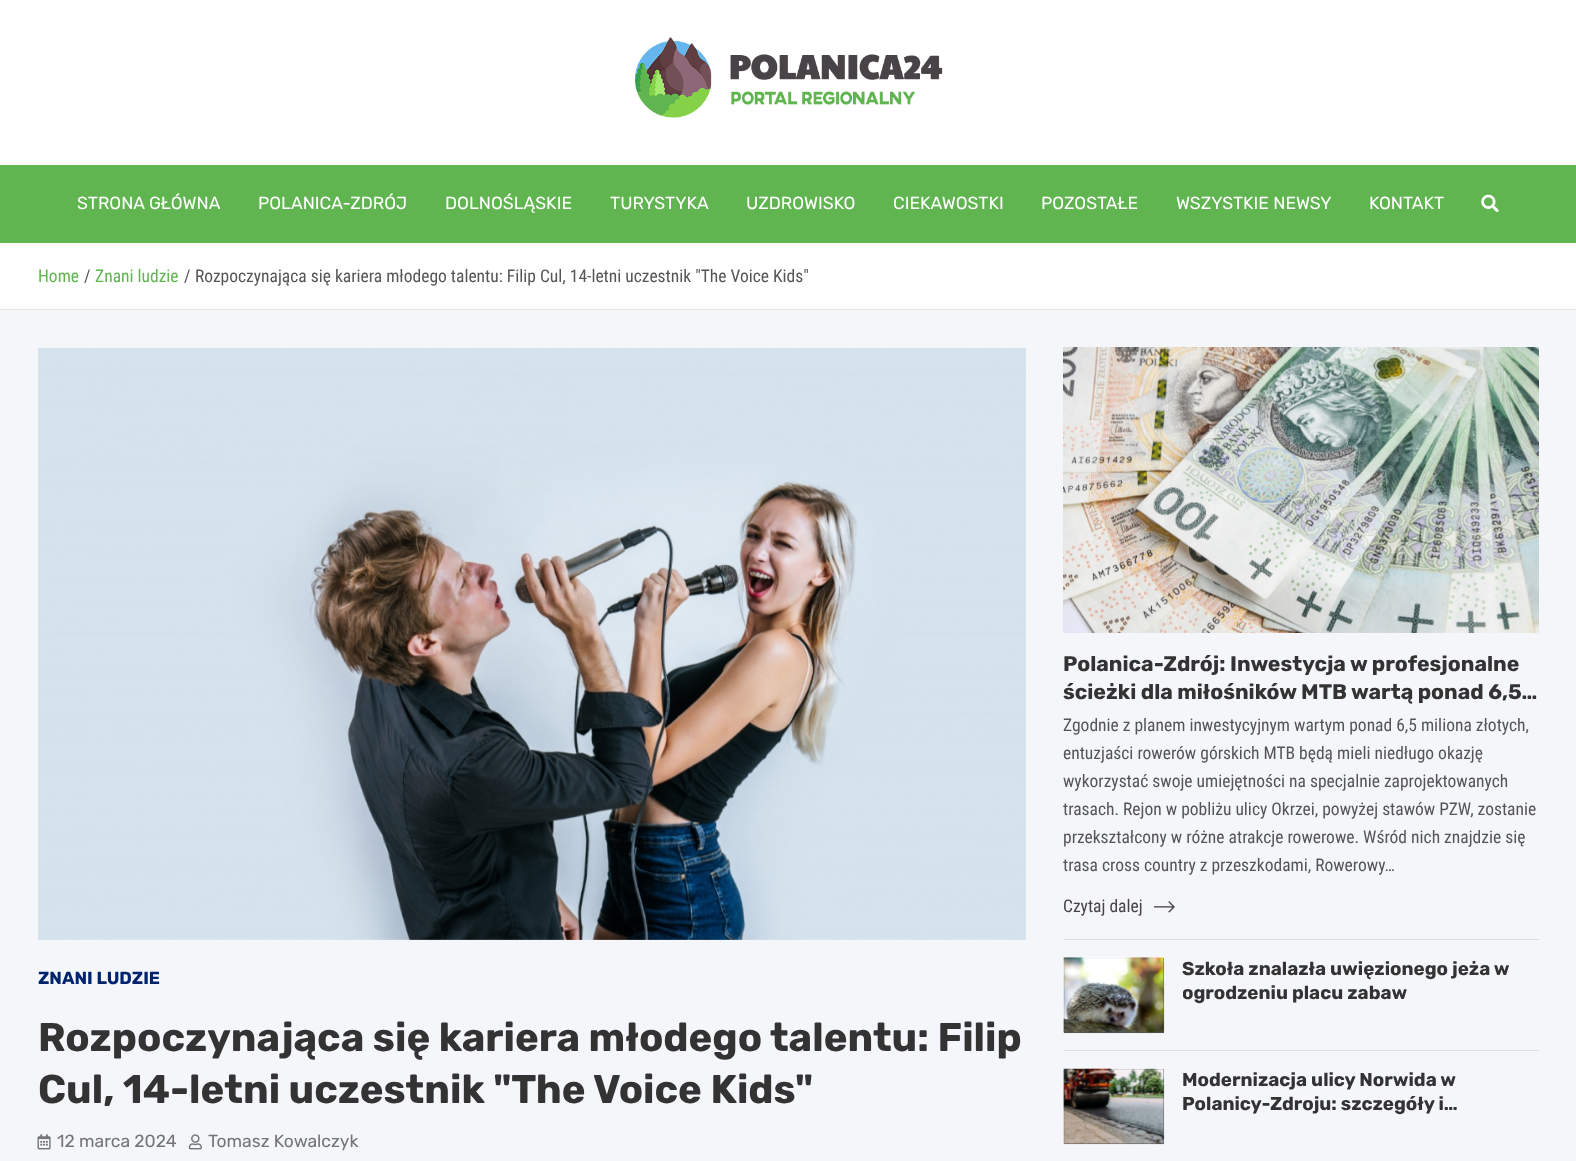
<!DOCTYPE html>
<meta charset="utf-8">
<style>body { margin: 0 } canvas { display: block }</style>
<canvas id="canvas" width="1576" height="1161"></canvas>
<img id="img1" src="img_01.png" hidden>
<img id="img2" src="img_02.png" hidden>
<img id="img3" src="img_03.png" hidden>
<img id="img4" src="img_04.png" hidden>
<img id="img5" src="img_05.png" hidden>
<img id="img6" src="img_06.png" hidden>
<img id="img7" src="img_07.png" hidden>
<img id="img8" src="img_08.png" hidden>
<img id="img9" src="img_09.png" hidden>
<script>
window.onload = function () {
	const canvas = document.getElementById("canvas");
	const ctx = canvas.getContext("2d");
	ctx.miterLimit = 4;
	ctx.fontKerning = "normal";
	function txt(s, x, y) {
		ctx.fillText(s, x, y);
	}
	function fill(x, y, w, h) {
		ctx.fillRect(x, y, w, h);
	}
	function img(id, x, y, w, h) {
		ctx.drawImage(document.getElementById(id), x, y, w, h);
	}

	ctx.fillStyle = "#F4F6F9";
	fill(0, 0, 1576, 1161);
	ctx.fillStyle = "#FFFFFF";
	fill(0, 0, 1576, 165);
	img("img1", 635, 37, 308, 81);
	ctx.fillStyle = "#60B550";
	fill(0, 165, 1576, 78);
	img("img2", 1481, 194, 18, 19);
	ctx.fillStyle = "#FFFFFF";
	fill(0, 243, 1576, 66);
	ctx.fillStyle = "#E6E6E6";
	fill(0, 309, 1576, 1);
	img("img3", 38, 348, 988, 592);
	img("img4", 37, 1134, 14, 16);
	img("img5", 188, 1134, 14, 16);
	img("img6", 1063, 347, 476, 286);
	img("img7", 1154, 901, 21, 12);
	ctx.fillStyle = "#DCDDE0";
	fill(1064, 939, 475, 1);
	ctx.fillStyle = "#555555";
	fill(1064, 958, 100, 75);
	img("img8", 1063, 957, 102, 77);
	ctx.fillStyle = "#DCDDE0";
	fill(1064, 1050, 475, 1);
	ctx.fillStyle = "#555555";
	fill(1064, 1069, 100, 75);
	img("img9", 1063, 1068, 102, 77);
	ctx.font = "17.5px Rubik";
	ctx.fillStyle = "#FFFFFF";
	txt("STRONA GŁÓWNA", 77, 209);
	txt("POLANICA-ZDRÓJ", 258, 209);
	txt("DOLNOŚLĄSKIE", 445, 209);
	txt("TURYSTYKA", 610, 209);
	txt("UZDROWISKO", 746, 209);
	txt("CIEKAWOSTKI", 893, 209);
	txt("POZOSTAŁE", 1041, 209);
	txt("WSZYSTKIE NEWSY", 1176, 209);
	txt("KONTAKT", 1369, 209);
	ctx.font = "17.5px Roboto Condensed";
	ctx.fillStyle = "#60B550";
	txt("Home", 38, 282);
	ctx.fillStyle = "#555555";
	txt("/", 84, 282);
	ctx.fillStyle = "#60B550";
	txt("Znani ludzie", 95, 282);
	ctx.fillStyle = "#555555";
	txt("/", 184, 282);
	txt("Rozpoczynająca się kariera młodego talentu: Filip Cul, 14-letni uczestnik \"The Voice Kids\"", 195, 282);
	ctx.font = "bold 17.5px Rubik";
	ctx.fillStyle = "#00236E";
	txt("ZNANI LUDZIE", 38, 984);
	ctx.font = "bold 40px Rubik";
	ctx.fillStyle = "#333333";
	txt("Rozpoczynająca się kariera młodego talentu: Filip", 38, 1051);
	txt("Cul, 14-letni uczestnik \"The Voice Kids\"", 38, 1103);
	ctx.font = "17.5px Rubik";
	ctx.fillStyle = "#757576";
	txt("12 marca 2024", 57, 1147);
	txt("Tomasz Kowalczyk", 208, 1147);
	ctx.font = "bold 21.25px Rubik";
	ctx.fillStyle = "#333333";
	txt("Polanica-Zdrój: Inwestycja w profesjonalne", 1063, 671);
	txt("ścieżki dla miłośników MTB wartą ponad 6,5…", 1063, 699);
	ctx.font = "17.5px Roboto Condensed";
	ctx.fillStyle = "#555555";
	txt("Zgodnie z planem inwestycyjnym wartym ponad 6,5 miliona złotych,", 1063, 731);
	txt("entuzjaści rowerów górskich MTB będą mieli niedługo okazję", 1063, 759);
	txt("wykorzystać swoje umiejętności na specjalnie zaprojektowanych", 1063, 787);
	txt("trasach. Rejon w pobliżu ulicy Okrzei, powyżej stawów PZW, zostanie", 1063, 815);
	txt("przekształcony w różne atrakcje rowerowe. Wśród nich znajdzie się", 1063, 843);
	txt("trasa cross country z przeszkodami, Rowerowy…", 1063, 871);
	ctx.fillStyle = "#474346";
	txt("Czytaj dalej", 1063, 912);
	ctx.font = "bold 18.75px Rubik";
	ctx.fillStyle = "#333333";
	txt("Szkoła znalazła uwięzionego jeża w", 1182, 975);
	ctx.save();
	ctx.beginPath();
	ctx.rect(1183, 958, 356, 48);
	ctx.clip();
	txt("ogrodzeniu placu zabaw", 1182, 999);
	ctx.restore();
	txt("Modernizacja ulicy Norwida w", 1182, 1086);
	txt("Polanicy-Zdroju: szczegóły i…", 1182, 1110);
};
</script>
